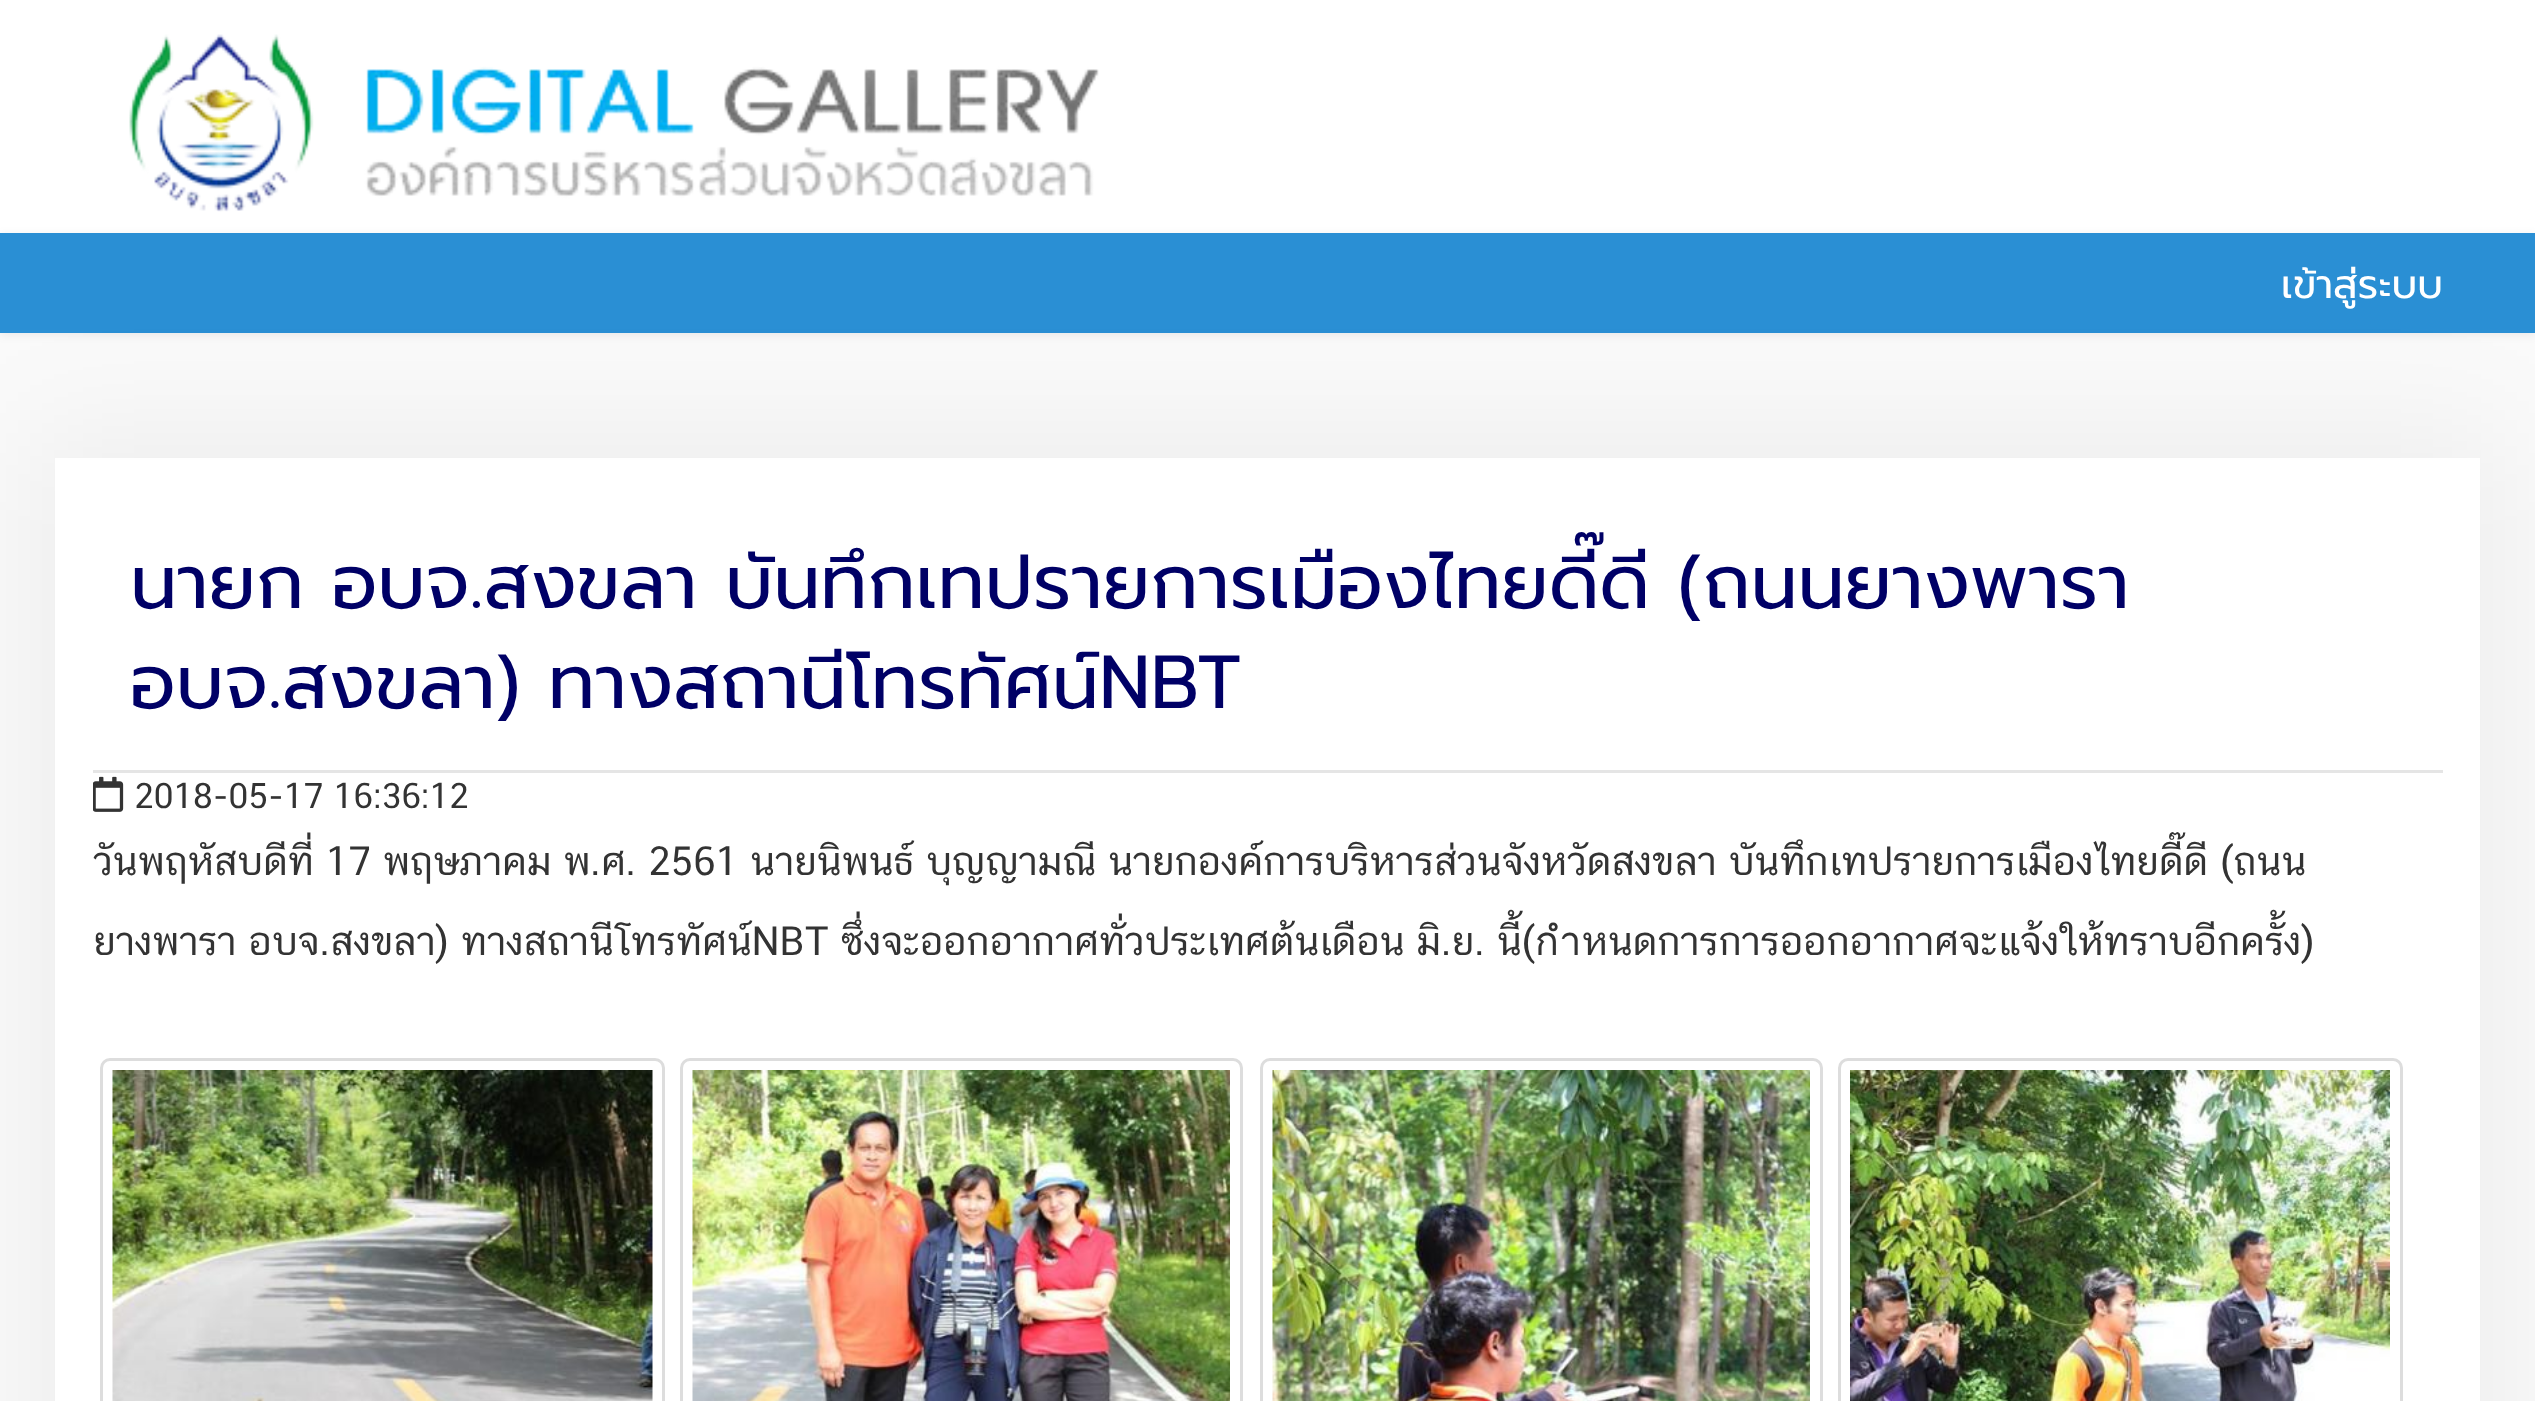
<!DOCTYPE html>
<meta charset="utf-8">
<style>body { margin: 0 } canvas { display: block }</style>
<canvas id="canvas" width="2535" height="1401"></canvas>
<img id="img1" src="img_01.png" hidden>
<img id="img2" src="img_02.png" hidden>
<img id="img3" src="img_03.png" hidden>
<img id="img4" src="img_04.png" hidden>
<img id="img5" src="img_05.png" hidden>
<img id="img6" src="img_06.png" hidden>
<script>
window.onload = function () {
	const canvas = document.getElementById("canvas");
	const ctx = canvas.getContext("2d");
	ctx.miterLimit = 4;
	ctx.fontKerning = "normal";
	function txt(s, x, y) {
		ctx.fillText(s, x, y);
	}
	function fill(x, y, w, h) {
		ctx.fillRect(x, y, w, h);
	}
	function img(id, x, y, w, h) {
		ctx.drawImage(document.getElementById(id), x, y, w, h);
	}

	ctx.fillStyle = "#FAFAFA";
	fill(0, 0, 2535, 1401);
	ctx.fillStyle = "#FFFFFF";
	fill(0, 0, 2535, 233);
	img("img1", 129, 34, 970, 178);
	ctx.fillStyle = "rgba(0, 0, 0, 0.07)";
	ctx.filter = "blur(5px)";
	ctx.beginPath();
	ctx.rect(0, 235, 2535, 100);
	ctx.fill();
	ctx.filter = "none";
	ctx.fillStyle = "#2A8FD4";
	fill(0, 233, 2535, 100);
	ctx.fillStyle = "rgba(0, 0, 0, 0.05)";
	ctx.filter = "blur(62.5px)";
	ctx.beginPath();
	ctx.rect(30, 433, 2475, 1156);
	ctx.fill();
	ctx.filter = "none";
	ctx.fillStyle = "#FFFFFF";
	fill(55, 458, 2425, 943);
	ctx.fillStyle = "#E5E5E5";
	fill(93, 770, 2350, 3);
	img("img2", 93, 776, 31, 36);
	ctx.beginPath();
	ctx.roundRect(101.5, 1059.5, 562, 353, 8.5);
	ctx.strokeStyle = "#DDDDDD";
	ctx.lineWidth = 3;
	ctx.stroke();
	img("img3", 112, 1070, 541, 331);
	ctx.beginPath();
	ctx.roundRect(681.5, 1059.5, 560, 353, 8.5);
	ctx.stroke();
	img("img4", 692, 1070, 538, 331);
	ctx.beginPath();
	ctx.roundRect(1261.5, 1059.5, 560, 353, 8.5);
	ctx.stroke();
	img("img5", 1272, 1070, 538, 331);
	ctx.beginPath();
	ctx.roundRect(1839.5, 1059.5, 562, 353, 8.5);
	ctx.stroke();
	img("img6", 1850, 1070, 540, 331);
	ctx.font = "40px Prompt";
	ctx.fillStyle = "#FFFFFF";
	txt("เข้าสู่ระบบ", 2281, 298);
	ctx.font = "75px Prompt";
	ctx.fillStyle = "#000066";
	txt("นายก อบจ.สงขลา บันทึกเทปรายการเมืองไทยดี๊ดี (ถนนยางพารา", 130, 608);
	txt("อบจ.สงขลา) ทางสถานีโทรทัศน์NBT", 130, 708);
	ctx.font = "35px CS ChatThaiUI";
	ctx.fillStyle = "#333333";
	txt("2018-05-17 16:36:12", 134, 808);
	ctx.save();
	ctx.beginPath();
	ctx.rect(93, 823, 2350, 160);
	ctx.clip();
	ctx.font = "40px CS ChatThaiUI";
	txt("วันพฤหัสบดีที่ 17 พฤษภาคม พ.ศ. 2561 นายนิพนธ์ บุญญามณี นายกองค์การบริหารส่วนจังหวัดสงขลา บันทึกเทปรายการเมืองไทยดี๊ดี (ถนน", 93, 875);
	ctx.restore();
	ctx.font = "40px CS ChatThaiUI";
	txt("ยางพารา อบจ.สงขลา) ทางสถานีโทรทัศน์NBT ซึ่งจะออกอากาศทั่วประเทศต้นเดือน มิ.ย. นี้(กำหนดการการออกอากาศจะแจ้งให้ทราบอีกครั้ง)", 93, 955);
};
</script>
